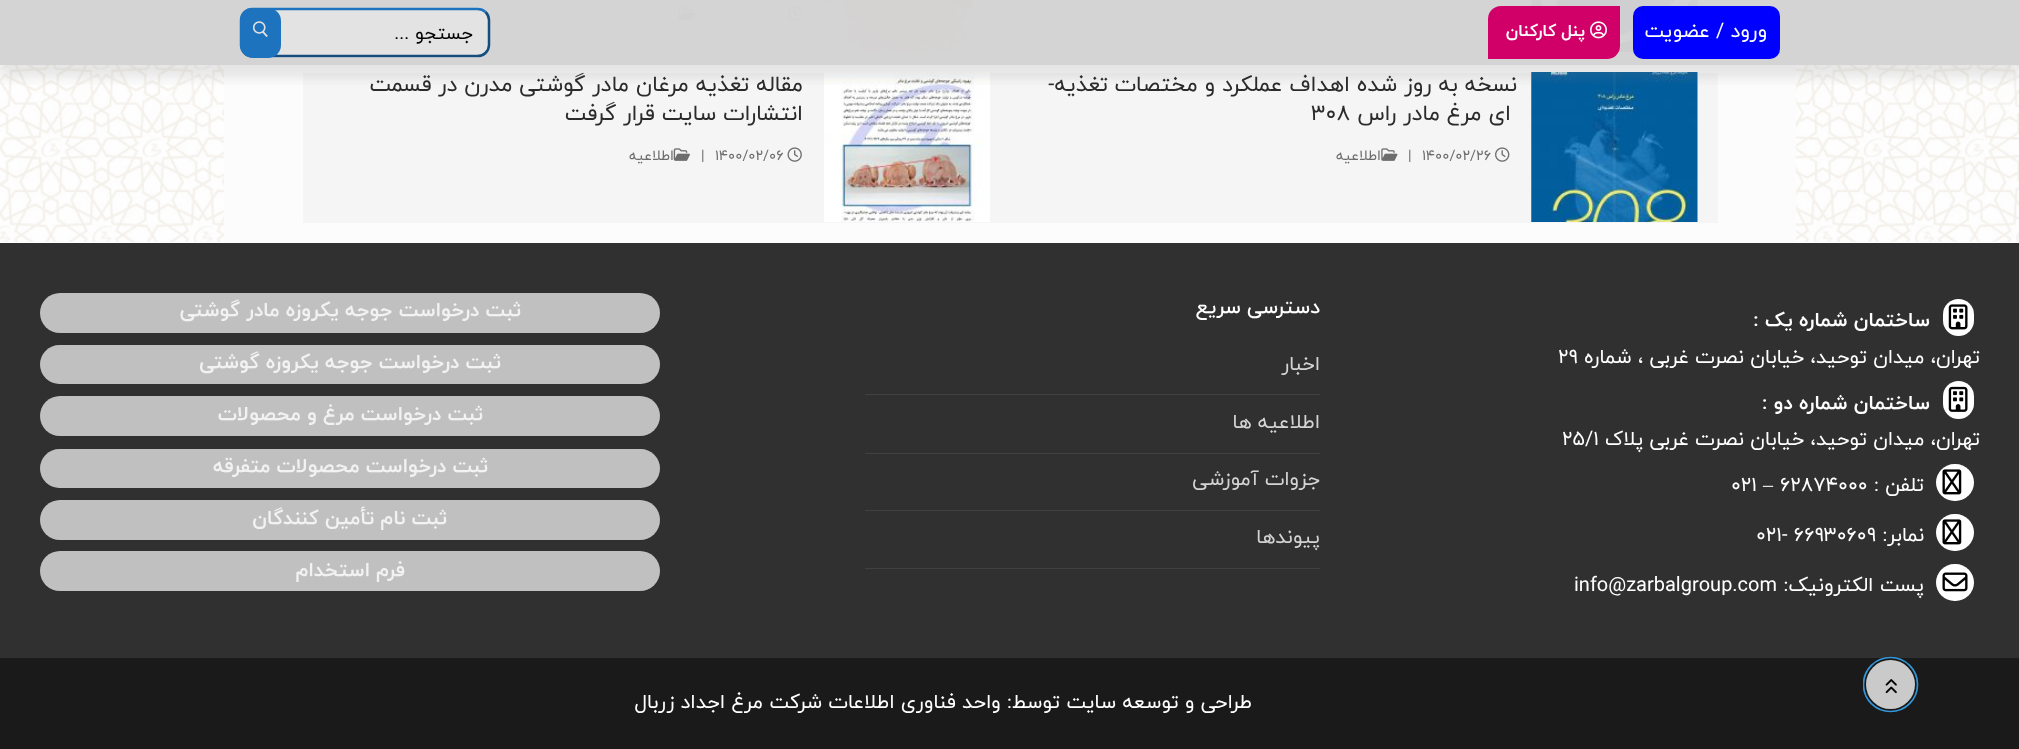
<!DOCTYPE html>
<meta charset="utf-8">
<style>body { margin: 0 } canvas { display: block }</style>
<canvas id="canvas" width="2019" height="749"></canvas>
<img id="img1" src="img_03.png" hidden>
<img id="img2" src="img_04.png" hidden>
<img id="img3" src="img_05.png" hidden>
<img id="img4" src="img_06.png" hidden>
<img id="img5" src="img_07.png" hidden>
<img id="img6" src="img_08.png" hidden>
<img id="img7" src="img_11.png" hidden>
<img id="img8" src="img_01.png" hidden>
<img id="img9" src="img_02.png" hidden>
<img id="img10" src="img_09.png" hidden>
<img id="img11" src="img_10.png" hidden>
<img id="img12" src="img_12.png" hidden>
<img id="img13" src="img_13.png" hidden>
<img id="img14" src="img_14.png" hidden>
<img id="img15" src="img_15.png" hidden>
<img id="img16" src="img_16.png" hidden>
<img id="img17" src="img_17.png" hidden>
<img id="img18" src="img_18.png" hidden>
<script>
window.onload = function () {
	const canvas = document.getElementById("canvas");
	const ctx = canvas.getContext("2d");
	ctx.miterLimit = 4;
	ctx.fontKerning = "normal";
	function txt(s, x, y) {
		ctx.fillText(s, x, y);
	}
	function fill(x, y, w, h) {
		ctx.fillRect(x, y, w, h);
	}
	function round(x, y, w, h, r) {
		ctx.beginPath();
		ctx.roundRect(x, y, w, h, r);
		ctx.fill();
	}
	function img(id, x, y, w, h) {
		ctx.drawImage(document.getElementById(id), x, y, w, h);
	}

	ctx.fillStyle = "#FFFFFF";
	fill(0, 0, 2019, 749);
	img("img1", 0, 0, 2019, 242);
	ctx.fillStyle = "#FCFCFC";
	fill(224, 0, 1572, 243);
	ctx.fillStyle = "#F5F5F5";
	fill(303, 0, 1415, 53);
	img("img2", 1531, 0, 167, 52);
	img("img3", 827, 0, 160, 52);
	img("img4", 787, 6, 15, 15);
	img("img5", 678, 7, 17, 13);
	fill(303, 73, 1415, 150);
	img("img6", 1531, 72, 167, 150);
	img("img7", 824, 72, 166, 150);
	ctx.save();
	ctx.beginPath();
	ctx.rect(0, 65, 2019, 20);
	ctx.clip();
	ctx.fillStyle = "rgba(130, 130, 130, 0.18)";
	ctx.filter = "blur(6px)";
	ctx.beginPath();
	ctx.rect(0, 13, 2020, 65);
	ctx.fill();
	ctx.filter = "none";
	ctx.restore();
	ctx.fillStyle = "rgba(211, 211, 211, 0.98)";
	fill(0, 0, 2019, 65);
	ctx.fillStyle = "#0000FF";
	round(1633, 6, 147, 53, 10);
	ctx.fillStyle = "#D10068";
	ctx.beginPath();
	ctx.roundRect(1488, 6, 132, 53, [13, 0, 13, 0]);
	ctx.fill();
	img("img8", 1590, 21, 17, 18);
	ctx.fillStyle = "#E3E3E3";
	round(240, 8, 250, 50, 13);
	ctx.beginPath();
	ctx.moveTo(485.5, 12);
	ctx.bezierCurveTo(487.5, 14, 489, 17, 489, 20);
	ctx.lineTo(489, 45);
	ctx.bezierCurveTo(489, 48, 487.5, 51, 485.5, 53);
	ctx.bezierCurveTo(483.5, 55, 480.5, 56, 477.5, 56);
	ctx.lineTo(252.5, 56);
	ctx.bezierCurveTo(249.5, 56, 246.5, 55, 244.5, 53);
	ctx.strokeStyle = "#144D7F";
	ctx.lineWidth = 2.5;
	ctx.stroke();
	ctx.beginPath();
	ctx.moveTo(244.5, 53);
	ctx.bezierCurveTo(242.5, 51, 241, 48, 241, 45);
	ctx.lineTo(241, 20);
	ctx.bezierCurveTo(241, 17, 242.5, 14, 244.5, 12);
	ctx.bezierCurveTo(246.5, 10, 249.5, 9, 252.5, 9);
	ctx.lineTo(477.5, 9);
	ctx.bezierCurveTo(480.5, 9, 483.5, 10, 485.5, 12);
	ctx.strokeStyle = "#1E73BE";
	ctx.stroke();
	ctx.fillStyle = "#1E73BE";
	round(240, 8, 41, 50, 13);
	img("img9", 253, 21, 15, 16);
	img("img10", 1495, 147, 15, 15);
	img("img11", 1381, 148, 17, 13);
	img("img12", 787, 147, 15, 15);
	img("img13", 673, 148, 17, 13);
	ctx.fillStyle = "#303030";
	fill(0, 243, 2019, 415);
	ctx.fillStyle = "#FFFFFF";
	round(1943, 299, 31, 37, 15.5);
	img("img14", 1948, 304, 20, 26);
	round(1943, 381, 31, 38, 15.5);
	img("img15", 1948, 386, 20, 26);
	round(1936, 464, 38, 37, 18.5);
	img("img16", 1942, 469, 20, 26);
	round(1936, 514, 38, 37, 18.5);
	img("img16", 1942, 519, 20, 26);
	round(1936, 564, 38, 37, 18.5);
	img("img17", 1942, 572, 26, 20);
	ctx.fillStyle = "#414141";
	fill(865, 394, 455, 1);
	fill(865, 453, 455, 1);
	fill(865, 510, 455, 1);
	fill(865, 568, 455, 1);
	ctx.fillStyle = "#C0C0C0";
	round(40, 293, 620, 40, 20);
	round(40, 345, 620, 39, 19.5);
	round(40, 396, 620, 40, 20);
	round(40, 449, 620, 39, 19.5);
	round(40, 500, 620, 40, 20);
	round(40, 551, 620, 40, 20);
	ctx.fillStyle = "#1A1A1A";
	fill(0, 658, 2019, 91);
	ctx.beginPath();
	ctx.roundRect(1864.5, 657.5, 53, 54, 26.5);
	ctx.strokeStyle = "rgba(0, 0, 0, 0.1)";
	ctx.lineWidth = 3;
	ctx.stroke();
	ctx.fillStyle = "#CACACA";
	ctx.beginPath();
	ctx.arc(1890.5, 684.5, 24.5, 0, Math.PI * 2);
	ctx.fill();
	ctx.save();
	ctx.beginPath();
	ctx.rect(1863, 656, 56, 57);
	ctx.clip();
	ctx.beginPath();
	ctx.moveTo(1890.5, 657.5);
	ctx.bezierCurveTo(1905.5, 657.5, 1917.5, 669.5, 1917.5, 684.5);
	ctx.bezierCurveTo(1917.5, 699.5, 1905.5, 711.5, 1890.5, 711.5);
	ctx.bezierCurveTo(1875.5, 711.5, 1863.5, 699.5, 1863.5, 684.5);
	ctx.bezierCurveTo(1863.5, 669.5, 1875.5, 657.5, 1890.5, 657.5);
	ctx.strokeStyle = "rgba(52, 152, 219, 0.99)";
	ctx.lineWidth = 1.7;
	ctx.stroke();
	ctx.restore();
	img("img18", 1885, 679, 12, 15);
	ctx.direction = "rtl";
	ctx.font = "20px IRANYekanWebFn";
	ctx.fillStyle = "#FFFFFF";
	txt("ورود / عضویت", 1767, 37);
	ctx.letterSpacing = "0.6px";
	ctx.wordSpacing = "-1px";
	ctx.font = "bold 17px IRANYekanWebFn";
	txt("پنل کارکنان", 1585, 36);
	ctx.letterSpacing = "0px";
	ctx.wordSpacing = "0px";
	ctx.font = "18.75px IRANYekanWebFn";
	ctx.fillStyle = "#000000";
	txt("جستجو ...", 473, 39);
	ctx.font = "22px IRANYekanWebFn";
	ctx.fillStyle = "#2B2B2B";
	txt("نسخه به روز شده اهداف عملکرد و مختصات تغذیه‌-", 1517, 91);
	txt("ای مرغ مادر راس", 1511, 120);
	ctx.direction = "ltr";
	txt("۳۰۸", 1311, 120);
	ctx.letterSpacing = "0.6px";
	ctx.font = "14.5px IRANYekanWebFn";
	ctx.fillStyle = "#6D6D6D";
	txt("۱۴۰۰/۰۲/۲۶", 1422, 160);
	txt("|", 1408, 160);
	ctx.direction = "rtl";
	txt("اطلاعیه", 1381, 160);
	ctx.letterSpacing = "0px";
	ctx.font = "22px IRANYekanWebFn";
	ctx.fillStyle = "#2B2B2B";
	txt("مقاله تغذیه مرغان مادر گوشتی مدرن در قسمت", 803, 91);
	txt("انتشارات سایت قرار گرفت", 803, 120);
	ctx.letterSpacing = "0.6px";
	ctx.direction = "ltr";
	ctx.font = "14.5px IRANYekanWebFn";
	ctx.fillStyle = "#6D6D6D";
	txt("۱۴۰۰/۰۲/۰۶", 715, 160);
	txt("|", 701, 160);
	ctx.direction = "rtl";
	txt("اطلاعیه", 674, 160);
	ctx.letterSpacing = "0px";
	ctx.font = "bold 20px IRANYekanWebFn";
	ctx.fillStyle = "#FFFFFF";
	txt("ساختمان شماره یک :", 1930, 326);
	ctx.font = "20px IRANYekanWebFn";
	txt("تهران، میدان توحید، خیابان نصرت غربی ، شماره", 1980, 363);
	ctx.direction = "ltr";
	txt("۲۹", 1558, 363);
	ctx.direction = "rtl";
	ctx.font = "bold 20px IRANYekanWebFn";
	txt("ساختمان شماره دو :", 1930, 409);
	ctx.font = "20px IRANYekanWebFn";
	txt("تهران، میدان توحید، خیابان نصرت غربی پلاک", 1980, 445);
	ctx.direction = "ltr";
	txt("۲۵/۱", 1562, 445);
	ctx.direction = "rtl";
	txt("تلفن :", 1924, 491);
	ctx.direction = "ltr";
	txt("۶۲۸۷۴۰۰۰", 1780, 491);
	ctx.font = "20px Liberation Serif";
	txt("–", 1763, 491);
	ctx.font = "20px IRANYekanWebFn";
	txt("۰۲۱", 1731, 491);
	ctx.direction = "rtl";
	txt("نمابر:", 1924, 541);
	ctx.direction = "ltr";
	txt("۰۲۱- ۶۶۹۳۰۶۰۹", 1756, 541);
	ctx.direction = "rtl";
	txt("پست الکترونیک:", 1924, 591);
	ctx.direction = "ltr";
	txt("info@zarbalgroup.com", 1574, 591);
	ctx.direction = "rtl";
	ctx.font = "500 20px IRANYekanWebFn";
	txt("دسترسی سریع", 1320, 313);
	ctx.font = "20px IRANYekanWebFn";
	ctx.fillStyle = "#D4D4D4";
	txt("اخبار", 1320, 370);
	txt("اطلاعیه ها", 1320, 428);
	txt("جزوات آموزشی", 1320, 485);
	txt("پیوندها", 1320, 543);
	ctx.font = "bold 20px IRANYekanWebFn";
	ctx.fillStyle = "#F2F2F2";
	txt("ثبت درخواست جوجه یکروزه مادر گوشتی", 521, 316);
	txt("ثبت درخواست جوجه یکروزه گوشتی", 501, 368);
	txt("ثبت درخواست مرغ و محصولات", 483, 420);
	txt("ثبت درخواست محصولات متفرقه", 488, 472);
	txt("ثبت نام تأمین کنندگان", 447, 524);
	txt("فرم استخدام", 405, 576);
	ctx.font = "20px IRANYekanWebFn";
	ctx.fillStyle = "#FFFFFF";
	txt("طراحی و توسعه سایت توسط: واحد فناوری اطلاعات شرکت مرغ اجداد زربال", 1252, 708);
};
</script>
